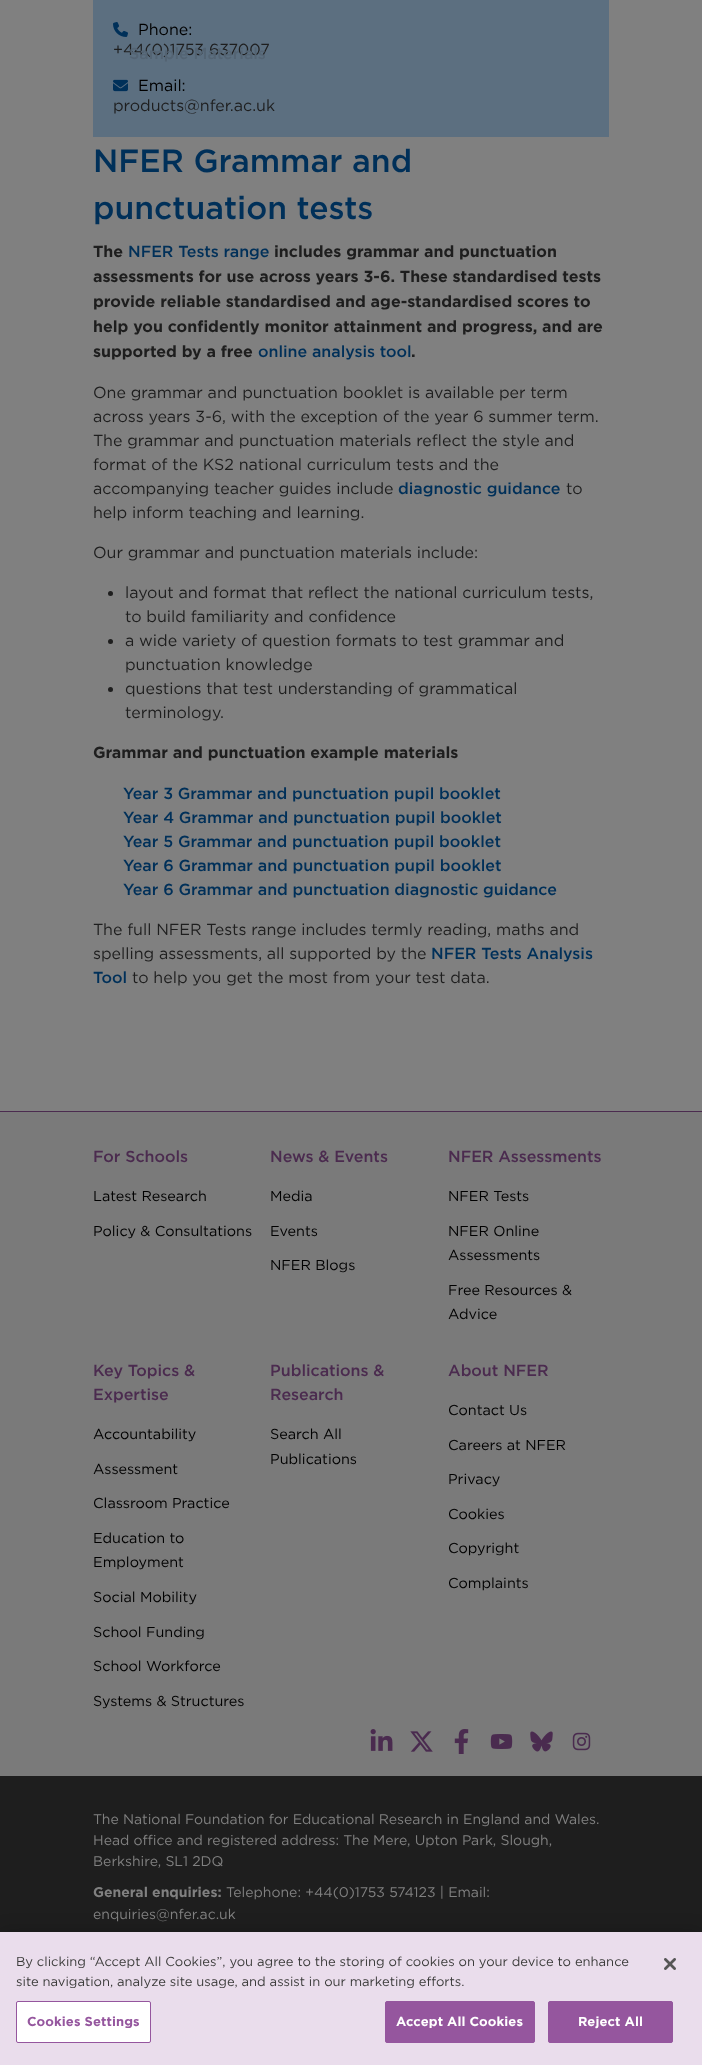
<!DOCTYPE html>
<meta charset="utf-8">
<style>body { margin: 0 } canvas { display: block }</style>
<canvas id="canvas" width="702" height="2065"></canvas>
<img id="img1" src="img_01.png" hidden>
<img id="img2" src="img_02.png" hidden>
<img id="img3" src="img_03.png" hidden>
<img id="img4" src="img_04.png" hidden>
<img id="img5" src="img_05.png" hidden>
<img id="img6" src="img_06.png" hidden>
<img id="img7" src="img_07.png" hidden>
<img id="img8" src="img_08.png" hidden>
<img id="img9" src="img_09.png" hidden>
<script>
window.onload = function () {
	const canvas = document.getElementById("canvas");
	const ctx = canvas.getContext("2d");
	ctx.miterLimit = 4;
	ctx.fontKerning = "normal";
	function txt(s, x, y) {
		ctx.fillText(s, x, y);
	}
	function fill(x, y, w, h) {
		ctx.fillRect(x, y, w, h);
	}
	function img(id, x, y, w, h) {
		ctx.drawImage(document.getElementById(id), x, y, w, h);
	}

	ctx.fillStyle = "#808080";
	fill(0, 0, 702, 2065);
	ctx.fillStyle = "#5C6F80";
	fill(93, 0, 516, 137);
	img("img1", 113, 22, 15, 15);
	img("img2", 113, 79, 15, 13);
	ctx.fillStyle = "#1E1E1E";
	ctx.beginPath();
	ctx.arc(110.5, 593.5, 2.5, 0, Math.PI * 2);
	ctx.fill();
	ctx.beginPath();
	ctx.arc(110.5, 641.5, 2.5, 0, Math.PI * 2);
	ctx.fill();
	ctx.beginPath();
	ctx.arc(110.5, 689.5, 2.5, 0, Math.PI * 2);
	ctx.fill();
	ctx.fillStyle = "#4B2B4F";
	fill(0, 1111, 702, 1);
	ctx.fillStyle = "#7A7A7A";
	fill(0, 1112, 702, 664);
	img("img3", 370, 1729, 23, 22);
	img("img4", 410, 1731, 23, 21);
	img("img5", 454, 1729, 15, 25);
	img("img6", 490, 1734, 23, 15);
	img("img7", 530, 1731, 23, 21);
	img("img8", 572, 1732, 19, 19);
	ctx.fillStyle = "#1E1E1E";
	fill(0, 1776, 702, 156);
	ctx.fillStyle = "rgba(0, 0, 0, 0.2)";
	ctx.filter = "blur(9px)";
	ctx.beginPath();
	ctx.rect(0, 1932, 702, 133);
	ctx.fill();
	ctx.filter = "none";
	ctx.fillStyle = "#EADDEC";
	fill(0, 1932, 702, 133);
	ctx.fillStyle = "#FFFFFF";
	ctx.beginPath();
	ctx.roundRect(16.5, 2001.5, 134, 41, 1.5);
	ctx.fill();
	ctx.strokeStyle = "#95569E";
	ctx.stroke();
	ctx.fillStyle = "#95569E";
	ctx.beginPath();
	ctx.roundRect(385.5, 2001.5, 149, 41, 1.5);
	ctx.fill();
	ctx.stroke();
	ctx.beginPath();
	ctx.roundRect(548.5, 2001.5, 124, 41, 1.5);
	ctx.fill();
	ctx.stroke();
	img("img9", 664, 1958, 12, 12);
	ctx.font = "16px Gotham";
	ctx.fillStyle = "#000000";
	txt("Phone:", 138, 35);
	ctx.fillStyle = "#1E1E1E";
	txt("+44(0)1753 637007", 113, 55);
	ctx.fillStyle = "#000000";
	txt("Email:", 138, 91);
	ctx.fillStyle = "#1E1E1E";
	txt("products@nfer.ac.uk", 113, 111);
	ctx.font = "500 16px Gotham";
	ctx.fillStyle = "#546473";
	txt("Sample Materials", 129, 59);
	ctx.font = "500 32px Gotham";
	ctx.fillStyle = "#003059";
	txt("NFER Grammar and", 93, 172);
	txt("punctuation tests", 93, 219);
	ctx.font = "bold 16px Gotham";
	ctx.fillStyle = "#1E1E1E";
	txt("The", 93, 257);
	ctx.font = "500 16px Gotham";
	ctx.fillStyle = "#003059";
	txt("NFER Tests range", 128, 257);
	ctx.font = "bold 16px Gotham";
	ctx.fillStyle = "#1E1E1E";
	txt("includes grammar and punctuation", 274, 257);
	txt("assessments for use across years 3-6. These standardised tests", 93, 282);
	txt("provide reliable standardised and age-standardised scores to", 93, 307);
	txt("help you confidently monitor attainment and progress, and are", 93, 332);
	txt("supported by a free", 93, 357);
	ctx.font = "500 16px Gotham";
	ctx.fillStyle = "#003059";
	txt("online analysis tool", 258, 357);
	ctx.font = "bold 16px Gotham";
	ctx.fillStyle = "#1E1E1E";
	txt(".", 411, 357);
	ctx.font = "16px Gotham";
	txt("One grammar and punctuation booklet is available per term", 93, 398);
	txt("across years 3-6, with the exception of the year 6 summer term.", 93, 422);
	txt("The grammar and punctuation materials reflect the style and", 93, 446);
	txt("format of the KS2 national curriculum tests and the", 93, 470);
	txt("accompanying teacher guides include", 93, 494);
	ctx.font = "500 16px Gotham";
	ctx.fillStyle = "#003059";
	txt("diagnostic guidance", 398, 494);
	ctx.font = "16px Gotham";
	ctx.fillStyle = "#1E1E1E";
	txt("to", 566, 494);
	txt("help inform teaching and learning.", 93, 518);
	txt("Our grammar and punctuation materials include:", 93, 558);
	txt("layout and format that reflect the national curriculum tests,", 125, 598);
	txt("to build familiarity and confidence", 125, 622);
	txt("a wide variety of question formats to test grammar and", 125, 646);
	txt("punctuation knowledge", 125, 670);
	txt("questions that test understanding of grammatical", 125, 694);
	txt("terminology.", 125, 718);
	ctx.font = "bold 16px Gotham";
	txt("Grammar and punctuation example materials", 93, 758);
	ctx.font = "500 16px Gotham";
	ctx.fillStyle = "#003059";
	txt("Year 3 Grammar and punctuation pupil booklet", 123, 799);
	txt("Year 4 Grammar and punctuation pupil booklet", 123, 823);
	txt("Year 5 Grammar and punctuation pupil booklet", 123, 847);
	txt("Year 6 Grammar and punctuation pupil booklet", 123, 871);
	txt("Year 6 Grammar and punctuation diagnostic guidance", 123, 895);
	ctx.font = "16px Gotham";
	ctx.fillStyle = "#1E1E1E";
	txt("The full NFER Tests range includes termly reading, maths and", 93, 935);
	txt("spelling assessments, all supported by the", 93, 959);
	ctx.font = "500 16px Gotham";
	ctx.fillStyle = "#003059";
	txt("NFER Tests Analysis", 431, 959);
	txt("Tool", 93, 983);
	ctx.font = "16px Gotham";
	ctx.fillStyle = "#1E1E1E";
	txt("to help you get the most from your test data.", 132, 983);
	ctx.font = "500 16px Gotham";
	ctx.fillStyle = "#4B2B4F";
	txt("For Schools", 93, 1162);
	ctx.font = "14.4px Gotham";
	ctx.fillStyle = "#000000";
	txt("Latest Research", 93, 1201);
	txt("Policy & Consultations", 93, 1236);
	ctx.font = "500 16px Gotham";
	ctx.fillStyle = "#4B2B4F";
	txt("News & Events", 270, 1162);
	ctx.font = "14.4px Gotham";
	ctx.fillStyle = "#000000";
	txt("Media", 270, 1201);
	txt("Events", 270, 1236);
	txt("NFER Blogs", 270, 1270);
	ctx.font = "500 16px Gotham";
	ctx.fillStyle = "#4B2B4F";
	txt("NFER Assessments", 448, 1162);
	ctx.font = "14.4px Gotham";
	ctx.fillStyle = "#000000";
	txt("NFER Tests", 448, 1201);
	txt("NFER Online", 448, 1236);
	txt("Assessments", 448, 1260);
	txt("Free Resources &", 448, 1295);
	txt("Advice", 448, 1319);
	ctx.font = "500 16px Gotham";
	ctx.fillStyle = "#4B2B4F";
	txt("Key Topics &", 93, 1376);
	txt("Expertise", 93, 1400);
	ctx.font = "14.4px Gotham";
	ctx.fillStyle = "#000000";
	txt("Accountability", 93, 1439);
	txt("Assessment", 93, 1474);
	txt("Classroom Practice", 93, 1508);
	txt("Education to", 93, 1543);
	txt("Employment", 93, 1567);
	txt("Social Mobility", 93, 1602);
	txt("School Funding", 93, 1637);
	txt("School Workforce", 93, 1671);
	txt("Systems & Structures", 93, 1706);
	ctx.font = "500 16px Gotham";
	ctx.fillStyle = "#4B2B4F";
	txt("Publications &", 270, 1376);
	txt("Research", 270, 1400);
	ctx.font = "14.4px Gotham";
	ctx.fillStyle = "#000000";
	txt("Search All", 270, 1439);
	txt("Publications", 270, 1464);
	ctx.font = "500 16px Gotham";
	ctx.fillStyle = "#4B2B4F";
	txt("About NFER", 448, 1376);
	ctx.font = "14.4px Gotham";
	ctx.fillStyle = "#000000";
	txt("Contact Us", 448, 1415);
	txt("Careers at NFER", 448, 1450);
	txt("Privacy", 448, 1484);
	txt("Cookies", 448, 1519);
	txt("Copyright", 448, 1553);
	txt("Complaints", 448, 1588);
	ctx.font = "14px Gotham";
	ctx.fillStyle = "#808080";
	txt("The National Foundation for Educational Research in England and Wales.", 93, 1824);
	txt("Head office and registered address: The Mere, Upton Park, Slough,", 93, 1845);
	txt("Berkshire, SL1 2DQ", 93, 1866);
	ctx.font = "bold 14px Gotham";
	txt("General enquiries:", 93, 1897);
	ctx.font = "14px Gotham";
	txt("Telephone: +44(0)1753 574123 | Email:", 226, 1897);
	txt("enquiries@nfer.ac.uk", 93, 1919);
	ctx.font = "13px Gotham";
	ctx.fillStyle = "#3C3C3B";
	txt("By clicking “Accept All Cookies”, you agree to the storing of cookies on your device to enhance", 16, 1966);
	txt("site navigation, analyze site usage, and assist in our marketing efforts.", 16, 1986);
	ctx.letterSpacing = "0.1px";
	ctx.font = "bold 13px Gotham";
	ctx.fillStyle = "#95569E";
	txt("Cookies Settings", 27, 2026);
	ctx.fillStyle = "#FFFFFF";
	txt("Accept All Cookies", 396, 2026);
	txt("Reject All", 578, 2026);
};
</script>
